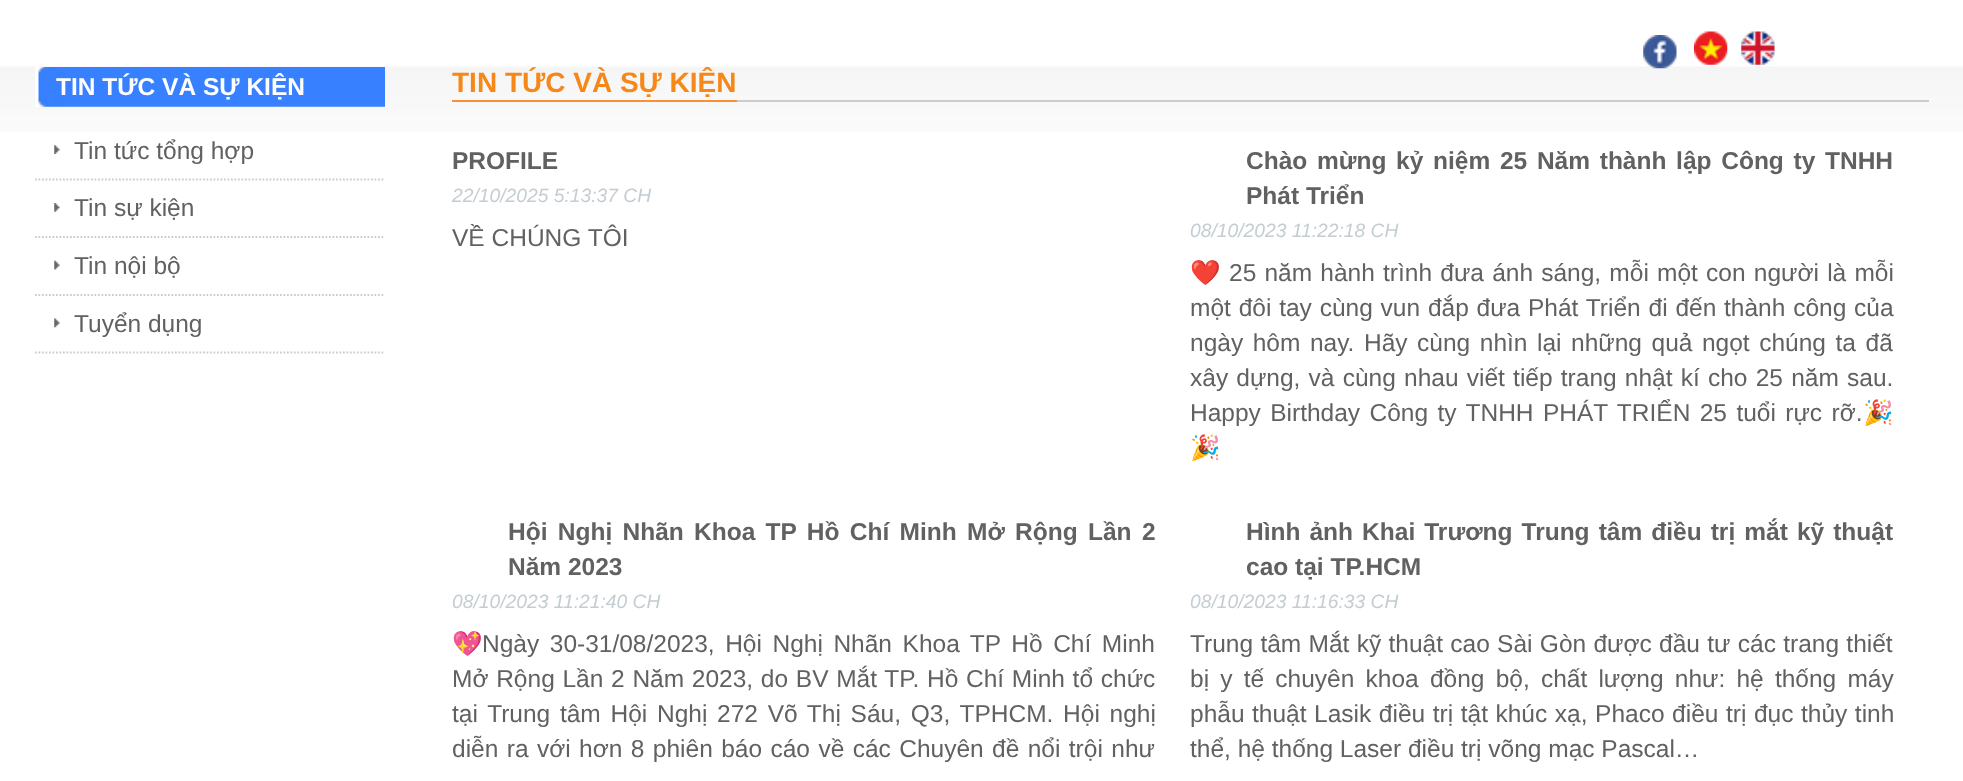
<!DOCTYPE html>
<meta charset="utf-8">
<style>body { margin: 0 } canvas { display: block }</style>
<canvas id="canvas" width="1963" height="781"></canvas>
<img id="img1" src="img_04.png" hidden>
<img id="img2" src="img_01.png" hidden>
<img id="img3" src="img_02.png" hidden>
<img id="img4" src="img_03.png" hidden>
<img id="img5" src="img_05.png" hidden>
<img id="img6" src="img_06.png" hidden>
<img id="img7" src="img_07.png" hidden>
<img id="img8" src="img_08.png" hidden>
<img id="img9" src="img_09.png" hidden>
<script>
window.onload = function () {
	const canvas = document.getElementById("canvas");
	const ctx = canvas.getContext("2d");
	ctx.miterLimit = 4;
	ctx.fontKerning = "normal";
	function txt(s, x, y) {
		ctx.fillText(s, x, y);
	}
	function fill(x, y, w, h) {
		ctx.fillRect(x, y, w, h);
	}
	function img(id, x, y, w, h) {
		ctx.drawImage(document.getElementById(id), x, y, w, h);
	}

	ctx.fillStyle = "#FFFFFF";
	fill(0, 0, 1963, 781);
	img("img1", 0, 66, 1963, 66);
	img("img2", 1643, 35, 34, 34);
	img("img3", 1694, 31, 34, 34);
	img("img4", 1741, 31, 34, 34);
	img("img5", 35, 67, 350, 40);
	ctx.beginPath();
	ctx.moveTo(35, 179.5);
	ctx.lineTo(385, 179.5);
	ctx.strokeStyle = "#CCCCCC";
	ctx.lineWidth = 1.8;
	ctx.setLineDash([1.75, 1.75]);
	ctx.stroke();
	img("img6", 54, 145, 6, 9);
	ctx.beginPath();
	ctx.moveTo(35, 237);
	ctx.lineTo(385, 237);
	ctx.stroke();
	img("img7", 54, 203, 6, 9);
	ctx.beginPath();
	ctx.moveTo(35, 295);
	ctx.lineTo(385, 295);
	ctx.stroke();
	img("img8", 54, 260, 6, 10);
	ctx.beginPath();
	ctx.moveTo(35, 352.5);
	ctx.lineTo(385, 352.5);
	ctx.stroke();
	img("img9", 54, 318, 6, 10);
	ctx.fillStyle = "#CCCCCC";
	fill(737, 100, 1192, 2);
	ctx.fillStyle = "#F89037";
	fill(452, 100, 285, 2);
	ctx.font = "bold 24.5px Liberation Sans";
	ctx.fillStyle = "#FFFFFF";
	txt("TIN TỨC VÀ SỰ KIỆN", 56, 95);
	ctx.font = "24.5px Liberation Sans";
	ctx.fillStyle = "#616161";
	txt("Tin tức tổng hợp", 74, 159);
	txt("Tin sự kiện", 74, 216);
	txt("Tin nội bộ", 74, 274);
	txt("Tuyển dụng", 74, 332);
	ctx.font = "bold 28px Liberation Sans";
	ctx.fillStyle = "#F68819";
	txt("TIN TỨC VÀ SỰ KIỆN", 452, 92);
	ctx.font = "bold 24.5px Liberation Sans";
	ctx.fillStyle = "#616161";
	txt("PROFILE", 452, 169);
	ctx.font = "italic 19.25px Liberation Sans";
	ctx.fillStyle = "#C3CDD2";
	txt("22/10/2025 5:13:37 CH", 452, 202);
	ctx.font = "24.5px Liberation Sans";
	ctx.fillStyle = "#616161";
	txt("VỀ CHÚNG TÔI", 452, 246);
	ctx.wordSpacing = "2.9px";
	ctx.font = "bold 24.5px Liberation Sans";
	txt("Chào mừng kỷ niệm 25 Năm thành lập Công ty TNHH", 1246, 169);
	ctx.wordSpacing = "0px";
	txt("Phát Triển", 1246, 204);
	ctx.font = "italic 19.25px Liberation Sans";
	ctx.fillStyle = "#C3CDD2";
	txt("08/10/2023 11:22:18 CH", 1190, 237);
	ctx.font = "24.5px Noto Color Emoji";
	ctx.fillStyle = "#616161";
	txt("❤️", 1190, 281);
	ctx.wordSpacing = "1.4px";
	ctx.font = "24.5px Liberation Sans";
	txt("25 năm hành trình đưa ánh sáng, mỗi một con người là mỗi", 1229, 281);
	ctx.wordSpacing = "1px";
	txt("một đôi tay cùng vun đắp đưa Phát Triển đi đến thành công của", 1190, 316);
	ctx.wordSpacing = "2.75px";
	txt("ngày hôm nay. Hãy cùng nhìn lại những quả ngọt chúng ta đã", 1190, 351);
	ctx.wordSpacing = "1.4px";
	txt("xây dựng, và cùng nhau viết tiếp trang nhật kí cho 25 năm sau.", 1190, 386);
	ctx.wordSpacing = "2.6px";
	txt("Happy Birthday Công ty TNHH PHÁT TRIỂN 25 tuổi rực rỡ.", 1190, 421);
	ctx.wordSpacing = "0px";
	ctx.font = "24.5px Noto Color Emoji";
	txt("🎉", 1863, 421);
	txt("🎉", 1190, 456);
	ctx.wordSpacing = "3.5px";
	ctx.font = "bold 24.5px Liberation Sans";
	txt("Hội Nghị Nhãn Khoa TP Hồ Chí Minh Mở Rộng Lần 2", 508, 540);
	ctx.wordSpacing = "0px";
	txt("Năm 2023", 508, 575);
	ctx.font = "italic 19.25px Liberation Sans";
	ctx.fillStyle = "#C3CDD2";
	txt("08/10/2023 11:21:40 CH", 452, 608);
	ctx.font = "24.5px Noto Color Emoji";
	ctx.fillStyle = "#616161";
	txt("💖", 452, 652);
	ctx.wordSpacing = "3.75px";
	ctx.font = "24.5px Liberation Sans";
	txt("Ngày 30-31/08/2023, Hội Nghị Nhãn Khoa TP Hồ Chí Minh", 482, 652);
	ctx.wordSpacing = "0.9px";
	txt("Mở Rộng Lần 2 Năm 2023, do BV Mắt TP. Hồ Chí Minh tổ chức", 452, 687);
	ctx.wordSpacing = "2.9px";
	txt("tại Trung tâm Hội Nghị 272 Võ Thị Sáu, Q3, TPHCM. Hội nghị", 452, 722);
	ctx.wordSpacing = "1.6px";
	txt("diễn ra với hơn 8 phiên báo cáo về các Chuyên đề nổi trội như", 452, 757);
	ctx.wordSpacing = "2.25px";
	ctx.font = "bold 24.5px Liberation Sans";
	txt("Hình ảnh Khai Trương Trung tâm điều trị mắt kỹ thuật", 1246, 540);
	ctx.wordSpacing = "0px";
	txt("cao tại TP.HCM", 1246, 575);
	ctx.font = "italic 19.25px Liberation Sans";
	ctx.fillStyle = "#C3CDD2";
	txt("08/10/2023 11:16:33 CH", 1190, 608);
	ctx.wordSpacing = "0.5px";
	ctx.font = "24.5px Liberation Sans";
	ctx.fillStyle = "#616161";
	txt("Trung tâm Mắt kỹ thuật cao Sài Gòn được đầu tư các trang thiết", 1190, 652);
	ctx.wordSpacing = "4.4px";
	txt("bị y tế chuyên khoa đồng bộ, chất lượng như: hệ thống máy", 1190, 687);
	ctx.wordSpacing = "0.75px";
	txt("phẫu thuật Lasik điều trị tật khúc xạ, Phaco điều trị đục thủy tinh", 1190, 722);
	ctx.wordSpacing = "0px";
	txt("thể, hệ thống Laser điều trị võng mạc Pascal…", 1190, 757);
};
</script>
